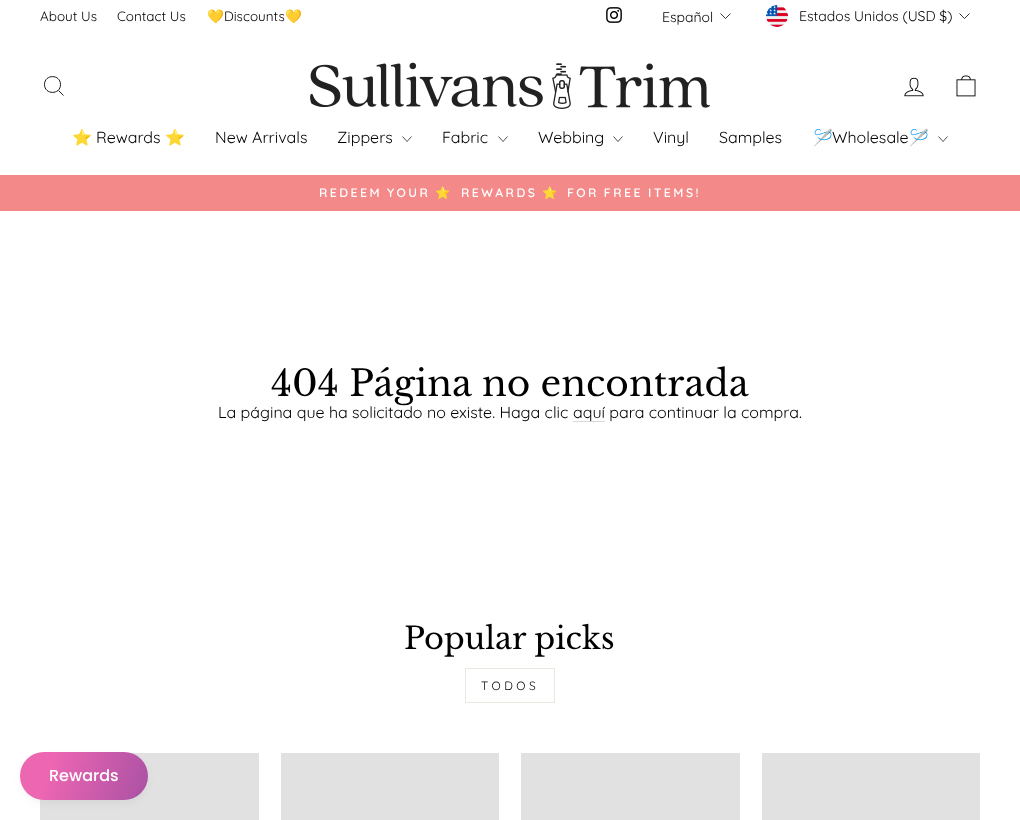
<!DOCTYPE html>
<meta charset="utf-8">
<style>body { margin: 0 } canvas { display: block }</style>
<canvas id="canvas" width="1020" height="820"></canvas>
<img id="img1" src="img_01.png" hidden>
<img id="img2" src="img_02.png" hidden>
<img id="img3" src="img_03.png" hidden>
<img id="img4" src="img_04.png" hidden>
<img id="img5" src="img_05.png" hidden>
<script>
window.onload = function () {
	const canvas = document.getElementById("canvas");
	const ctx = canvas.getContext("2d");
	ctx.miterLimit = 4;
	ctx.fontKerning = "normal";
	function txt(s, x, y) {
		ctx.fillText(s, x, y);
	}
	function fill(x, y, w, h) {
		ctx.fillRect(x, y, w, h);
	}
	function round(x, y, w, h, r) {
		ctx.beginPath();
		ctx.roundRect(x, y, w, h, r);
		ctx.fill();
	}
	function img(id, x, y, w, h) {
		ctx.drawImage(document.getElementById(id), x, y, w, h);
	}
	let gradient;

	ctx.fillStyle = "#FFFFFF";
	fill(0, 0, 1020, 820);
	img("img1", 606, 7, 16, 16);
	ctx.beginPath();
	ctx.moveTo(720.5, 13.5);
	ctx.lineTo(725.5, 18.5);
	ctx.lineTo(730.5, 13.5);
	ctx.strokeStyle = "#000000";
	ctx.lineWidth = 0.8;
	ctx.stroke();
	img("img2", 766, 5, 22, 22);
	ctx.beginPath();
	ctx.moveTo(959.5, 13.5);
	ctx.lineTo(964.5, 18.5);
	ctx.lineTo(969.5, 13.5);
	ctx.stroke();
	ctx.beginPath();
	ctx.moveTo(60.5, 84.5);
	ctx.bezierCurveTo(60.5, 95, 44.5, 95, 44.5, 84.5);
	ctx.bezierCurveTo(44.5, 74, 60.5, 74, 60.5, 84.5);
	ctx.closePath();
	ctx.moveTo(63.5, 95.5);
	ctx.lineTo(58.5, 90.5);
	ctx.lineWidth = 0.9;
	ctx.stroke();
	img("img3", 310, 62, 400, 47);
	img("img4", 904, 77, 20, 20);
	img("img5", 956, 75, 20, 22);
	ctx.beginPath();
	ctx.moveTo(402.5, 136.5);
	ctx.lineTo(407, 141.5);
	ctx.lineTo(411.5, 136.5);
	ctx.lineWidth = 0.7;
	ctx.stroke();
	ctx.beginPath();
	ctx.moveTo(498.5, 136.5);
	ctx.lineTo(503, 141.5);
	ctx.lineTo(507.5, 136.5);
	ctx.stroke();
	ctx.beginPath();
	ctx.moveTo(613.5, 136.5);
	ctx.lineTo(618, 141.5);
	ctx.lineTo(622.5, 136.5);
	ctx.stroke();
	ctx.beginPath();
	ctx.moveTo(938.5, 136.5);
	ctx.lineTo(943, 141.5);
	ctx.lineTo(947.5, 136.5);
	ctx.stroke();
	ctx.fillStyle = "#F48989";
	fill(0, 175, 1020, 36);
	ctx.fillStyle = "#D9D9D9";
	fill(573, 421, 32, 1);
	ctx.strokeStyle = "#E8E8E1";
	ctx.lineWidth = 1;
	ctx.strokeRect(465.5, 668.5, 89, 34);
	ctx.fillStyle = "#E1E1E1";
	fill(40, 753, 219, 67);
	fill(281, 753, 218, 67);
	fill(521, 753, 219, 67);
	fill(762, 753, 218, 67);
	ctx.fillStyle = "rgba(68, 68, 68, 0.08)";
	ctx.filter = "blur(4px)";
	ctx.beginPath();
	ctx.roundRect(22, 758, 124, 44, 22);
	ctx.fill();
	ctx.filter = "none";
	gradient = ctx.createLinearGradient(20, 753, 200, 817);
	gradient.addColorStop(0.17, "#ED66B2");
	gradient.addColorStop(1, "#86469C");
	ctx.fillStyle = gradient;
	round(20, 752, 128, 48, 24);
	ctx.font = "13.5px Quicksand";
	ctx.fillStyle = "#000000";
	txt("About Us", 40, 21);
	txt("Contact Us", 117, 21);
	ctx.font = "13.5px Noto Color Emoji";
	txt("💛", 207, 21);
	ctx.font = "13.5px Quicksand";
	txt("Discounts", 224, 21);
	ctx.font = "13.5px Noto Color Emoji";
	txt("💛", 285, 21);
	ctx.font = "14px Quicksand";
	txt("Español", 662, 22);
	txt("Estados Unidos (USD $)", 799, 21);
	ctx.font = "16px Noto Color Emoji";
	txt("⭐️", 72, 143);
	ctx.font = "16px Quicksand";
	txt("Rewards", 96, 143);
	ctx.font = "16px Noto Color Emoji";
	txt("⭐️", 165, 143);
	ctx.font = "16px Quicksand";
	txt("New Arrivals", 215, 143);
	txt("Zippers", 337, 143);
	txt("Fabric", 442, 143);
	txt("Webbing", 538, 143);
	txt("Vinyl", 653, 143);
	txt("Samples", 719, 143);
	ctx.font = "16px Noto Color Emoji";
	txt("🪡", 813, 143);
	ctx.font = "16px Quicksand";
	txt("Wholesale", 832, 143);
	ctx.font = "16px Noto Color Emoji";
	txt("🪡", 909, 143);
	ctx.letterSpacing = "2.5px";
	ctx.wordSpacing = "-1px";
	ctx.font = "600 12.25px Quicksand";
	ctx.fillStyle = "#FFFFFF";
	txt("REDEEM YOUR", 319, 197);
	ctx.wordSpacing = "0px";
	ctx.font = "bold 12.25px Noto Color Emoji";
	txt("⭐️", 435, 197);
	ctx.font = "600 12.25px Quicksand";
	txt("REWARDS", 461, 197);
	ctx.font = "bold 12.25px Noto Color Emoji";
	txt("⭐️", 542, 197);
	ctx.wordSpacing = "-1px";
	ctx.font = "600 12.25px Quicksand";
	txt("FOR FREE ITEMS!", 567, 197);
	ctx.letterSpacing = "0px";
	ctx.wordSpacing = "0px";
	ctx.font = "36px Libre Baskerville";
	ctx.fillStyle = "#000000";
	txt("404 Página no encontrada", 271, 396);
	ctx.font = "16px Quicksand";
	txt("La página que ha solicitado no existe. Haga clic", 218, 418);
	txt("aquí para continuar la compra.", 573, 418);
	ctx.font = "30.5px Libre Baskerville";
	txt("Popular picks", 404, 649);
	ctx.letterSpacing = "3.5px";
	ctx.font = "12px Quicksand";
	txt("TODOS", 481, 690);
	ctx.letterSpacing = "0px";
	ctx.font = "500 16px Poppins";
	ctx.fillStyle = "#FFFFFF";
	txt("Rewards", 49, 781);
};
</script>
